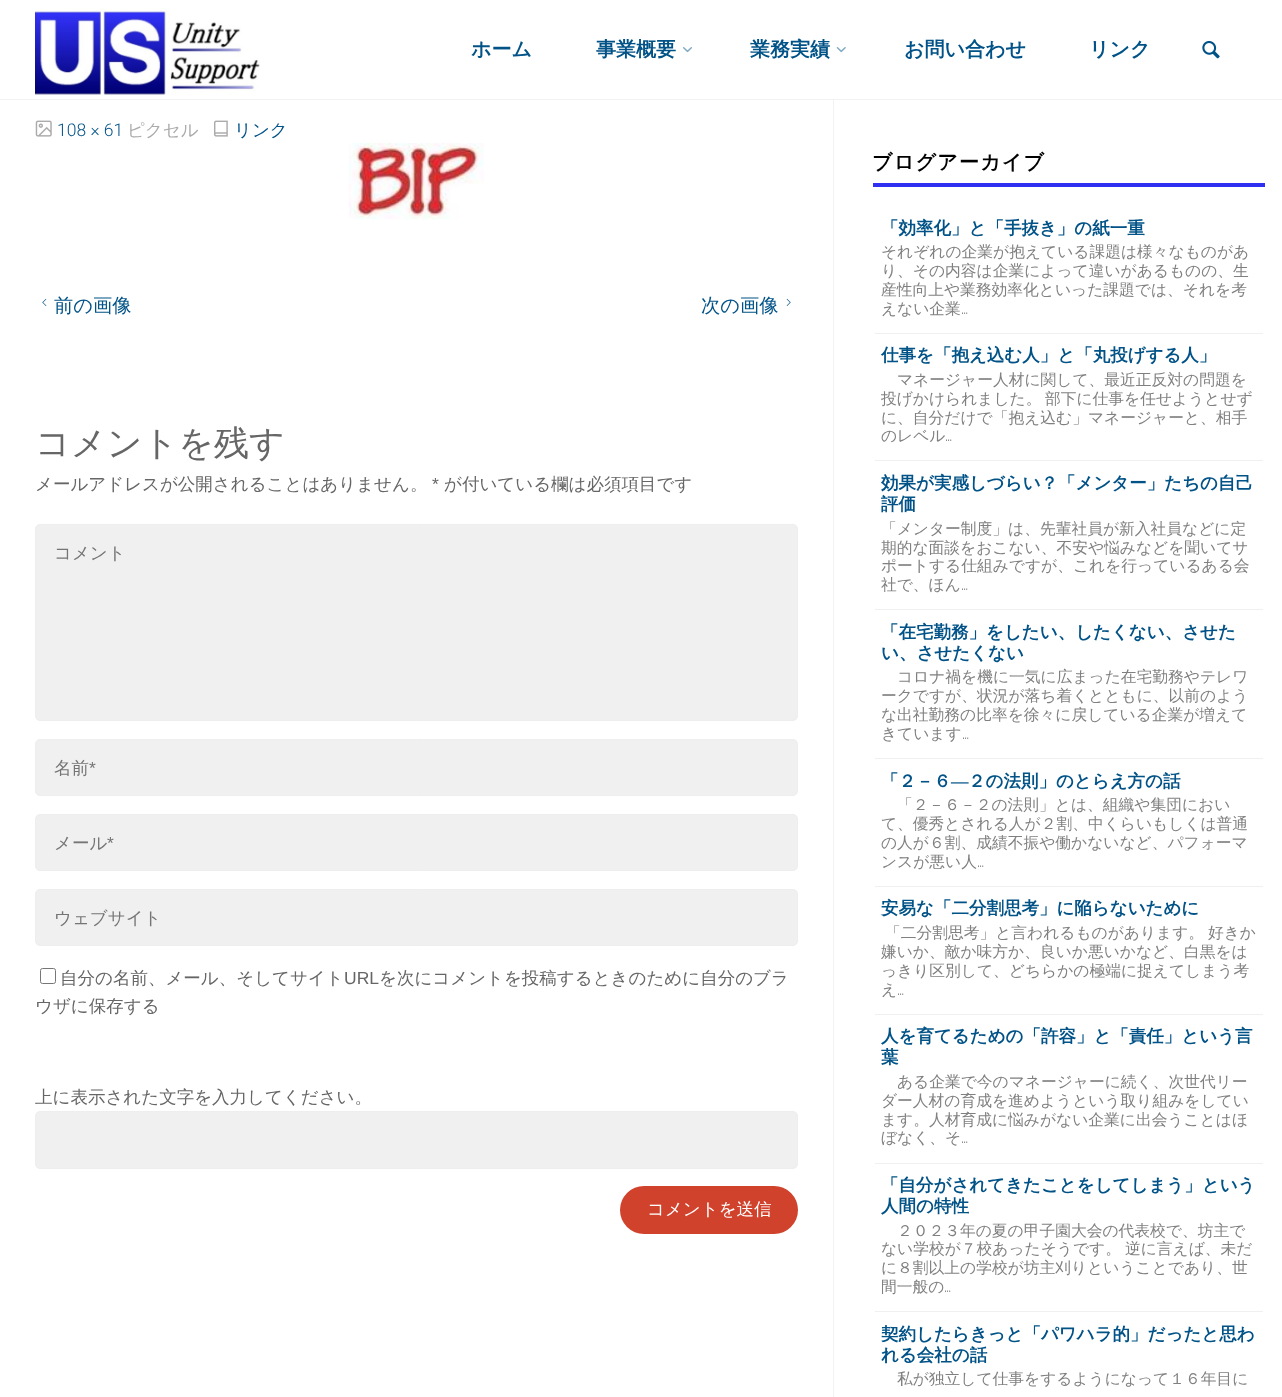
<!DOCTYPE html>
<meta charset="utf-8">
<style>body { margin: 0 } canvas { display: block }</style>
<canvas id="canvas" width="1282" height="1397"></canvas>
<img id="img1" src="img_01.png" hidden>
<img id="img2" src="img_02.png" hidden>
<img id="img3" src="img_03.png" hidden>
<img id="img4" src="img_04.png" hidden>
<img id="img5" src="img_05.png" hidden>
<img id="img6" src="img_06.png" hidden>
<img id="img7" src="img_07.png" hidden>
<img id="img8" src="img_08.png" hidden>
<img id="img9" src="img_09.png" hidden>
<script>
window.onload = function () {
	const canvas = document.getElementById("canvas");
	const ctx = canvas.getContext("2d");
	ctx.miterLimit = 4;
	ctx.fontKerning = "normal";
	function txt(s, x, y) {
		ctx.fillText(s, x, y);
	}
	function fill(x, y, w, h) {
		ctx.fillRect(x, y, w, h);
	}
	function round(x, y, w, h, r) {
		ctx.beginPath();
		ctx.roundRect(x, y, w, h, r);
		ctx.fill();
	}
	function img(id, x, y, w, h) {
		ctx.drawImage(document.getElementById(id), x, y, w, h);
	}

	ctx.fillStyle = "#FFFFFF";
	fill(0, 0, 1282, 1397);
	ctx.fillStyle = "#F2F2F2";
	fill(0, 99, 1282, 1);
	img("img1", 35, 8, 225, 87);
	img("img2", 683, 47, 9, 6);
	img("img3", 836, 47, 10, 6);
	img("img4", 1202, 41, 18, 18);
	img("img5", 35, 120, 17, 17);
	img("img6", 214, 120, 14, 17);
	img("img7", 348, 143, 136, 77);
	img("img8", 42, 298, 5, 8);
	img("img9", 786, 298, 5, 8);
	ctx.fillStyle = "#F0F0F0";
	ctx.beginPath();
	ctx.roundRect(35.5, 524.5, 762, 196, 4.5);
	ctx.fill();
	ctx.strokeStyle = "#EEEEEE";
	ctx.stroke();
	ctx.beginPath();
	ctx.roundRect(35.5, 739.5, 762, 56, 4.5);
	ctx.fill();
	ctx.stroke();
	ctx.beginPath();
	ctx.roundRect(35.5, 814.5, 762, 56, 4.5);
	ctx.fill();
	ctx.stroke();
	ctx.beginPath();
	ctx.roundRect(35.5, 889.5, 762, 56, 4.5);
	ctx.fill();
	ctx.stroke();
	ctx.beginPath();
	ctx.roundRect(40.5, 968.5, 15, 15, 2);
	ctx.strokeStyle = "#767676";
	ctx.stroke();
	ctx.beginPath();
	ctx.roundRect(35.5, 1111.5, 762, 57, 4.5);
	ctx.fill();
	ctx.strokeStyle = "#EEEEEE";
	ctx.stroke();
	ctx.fillStyle = "#D0422C";
	round(620, 1186, 178, 48, 24);
	ctx.fillStyle = "#F2F2F2";
	fill(833, 100, 1, 1297);
	ctx.fillStyle = "#3030F3";
	fill(873, 183, 392, 4);
	ctx.fillStyle = "#F0F0F0";
	fill(875, 333, 388, 1);
	fill(875, 460, 388, 1);
	fill(875, 609, 388, 1);
	fill(875, 758, 388, 1);
	fill(875, 886, 388, 1);
	fill(875, 1014, 388, 1);
	fill(875, 1163, 388, 1);
	fill(875, 1311, 388, 1);
	ctx.font = "bold 20px WenQuanYi Zen Hei";
	ctx.fillStyle = "#005287";
	txt("ホーム", 471, 56);
	txt("事業概要", 596, 56);
	txt("業務実績", 750, 56);
	txt("お問い合わせ", 904, 56);
	txt("リンク", 1089, 56);
	ctx.font = "300 17.5px Roboto";
	txt("108 × 61", 57, 136);
	ctx.font = "500 17.5px WenQuanYi Zen Hei";
	ctx.fillStyle = "#ABABAB";
	txt("ピクセル", 127, 136);
	ctx.fillStyle = "#005287";
	txt("リンク", 234, 136);
	ctx.font = "500 19.25px WenQuanYi Zen Hei";
	txt("前の画像", 54, 312);
	txt("次の画像", 701, 312);
	ctx.font = "500 35px WenQuanYi Zen Hei";
	ctx.fillStyle = "#666666";
	txt("コメントを残す", 35, 455);
	ctx.font = "500 17.5px WenQuanYi Zen Hei";
	txt("メールアドレスが公開されることはありません。", 35, 490);
	ctx.font = "17.5px Liberation Sans";
	txt("*", 432, 490);
	ctx.font = "500 17.5px WenQuanYi Zen Hei";
	txt("が付いている欄は必須項目です", 444, 490);
	ctx.fillStyle = "#757575";
	txt("コメント", 54, 559);
	txt("名前", 54, 774);
	ctx.font = "17.5px Liberation Sans";
	txt("*", 89, 774);
	ctx.font = "500 17.5px WenQuanYi Zen Hei";
	txt("メール", 54, 849);
	ctx.font = "17.5px Liberation Sans";
	txt("*", 107, 849);
	ctx.font = "500 17.5px WenQuanYi Zen Hei";
	txt("ウェブサイト", 54, 924);
	ctx.fillStyle = "#666666";
	txt("自分の名前、メール、そしてサイト", 60, 984);
	ctx.font = "17.5px Liberation Sans";
	txt("URL", 344, 984);
	ctx.font = "500 17.5px WenQuanYi Zen Hei";
	txt("を次にコメントを投稿するときのために自分のブラ", 379, 984);
	txt("ウザに保存する", 35, 1012);
	txt("上に表示された文字を入力してください。", 35, 1103);
	ctx.fillStyle = "#FFFFFF";
	txt("コメントを送信", 647, 1215);
	ctx.letterSpacing = "1.25px";
	ctx.font = "bold 20px WenQuanYi Zen Hei";
	ctx.fillStyle = "#000000";
	txt("ブログアーカイブ", 872, 169);
	ctx.letterSpacing = "0px";
	ctx.font = "bold 17.5px WenQuanYi Zen Hei";
	ctx.fillStyle = "#005287";
	txt("「効率化」と「手抜き」の紙一重", 881, 234);
	ctx.font = "500 15.75px WenQuanYi Zen Hei";
	ctx.fillStyle = "#808080";
	txt("それぞれの企業が抱えている課題は様々なものがあ", 881, 257);
	txt("り、その内容は企業によって違いがあるものの、生", 881, 276);
	txt("産性向上や業務効率化といった課題では、それを考", 881, 295);
	txt("えない企業", 881, 314);
	ctx.font = "15.75px Raleway";
	txt("…", 961, 314);
	ctx.font = "bold 17.5px WenQuanYi Zen Hei";
	ctx.fillStyle = "#005287";
	txt("仕事を「抱え込む人」と「丸投げする人」", 881, 361);
	ctx.font = "500 15.75px WenQuanYi Zen Hei";
	ctx.fillStyle = "#808080";
	txt("マネージャー人材に関して、最近正反対の問題を", 897, 385);
	txt("投げかけられました。", 881, 404);
	txt("部下に仕事を任せようとせず", 1045, 404);
	txt("に、自分だけで「抱え込む」マネージャーと、相手", 881, 423);
	txt("のレベル", 881, 441);
	ctx.font = "15.75px Raleway";
	txt("…", 945, 441);
	ctx.font = "bold 17.5px WenQuanYi Zen Hei";
	ctx.fillStyle = "#005287";
	txt("効果が実感しづらい？「メンター」たちの自己", 881, 489);
	txt("評価", 881, 510);
	ctx.font = "500 15.75px WenQuanYi Zen Hei";
	ctx.fillStyle = "#808080";
	txt("「メンター制度」は、先輩社員が新入社員などに定", 881, 534);
	txt("期的な面談をおこない、不安や悩みなどを聞いてサ", 881, 553);
	txt("ポートする仕組みですが、これを行っているある会", 881, 571);
	txt("社で、ほん", 881, 590);
	ctx.font = "15.75px Raleway";
	txt("…", 961, 590);
	ctx.font = "bold 17.5px WenQuanYi Zen Hei";
	ctx.fillStyle = "#005287";
	txt("「在宅勤務」をしたい、したくない、させた", 881, 638);
	txt("い、させたくない", 881, 659);
	ctx.font = "500 15.75px WenQuanYi Zen Hei";
	ctx.fillStyle = "#808080";
	txt("コロナ禍を機に一気に広まった在宅勤務やテレワ", 897, 682);
	txt("ークですが、状況が落ち着くとともに、以前のよう", 881, 701);
	txt("な出社勤務の比率を徐々に戻している企業が増えて", 881, 720);
	txt("きています", 881, 739);
	ctx.font = "15.75px Raleway";
	txt("…", 962, 739);
	ctx.font = "bold 17.5px WenQuanYi Zen Hei";
	ctx.fillStyle = "#005287";
	txt("「２－６", 881, 787);
	ctx.font = "bold 17.5px Liberation Serif";
	txt("―", 951, 787);
	ctx.font = "bold 17.5px WenQuanYi Zen Hei";
	txt("２の法則」のとらえ方の話", 968, 787);
	ctx.font = "500 15.75px WenQuanYi Zen Hei";
	ctx.fillStyle = "#808080";
	txt("「２－６－２の法則」とは、組織や集団におい", 897, 810);
	txt("て、優秀とされる人が２割、中くらいもしくは普通", 881, 829);
	txt("の人が６割、成績不振や働かないなど、パフォーマ", 881, 848);
	txt("ンスが悪い人", 881, 867);
	ctx.font = "15.75px Raleway";
	txt("…", 977, 867);
	ctx.font = "bold 17.5px WenQuanYi Zen Hei";
	ctx.fillStyle = "#005287";
	txt("安易な「二分割思考」に陥らないために", 881, 914);
	ctx.font = "500 15.75px WenQuanYi Zen Hei";
	ctx.fillStyle = "#808080";
	txt("「二分割思考」と言われるものがあります。", 885, 938);
	txt("好きか", 1208, 938);
	txt("嫌いか、敵か味方か、良いか悪いかなど、白黒をは", 881, 957);
	txt("っきり区別して、どちらかの極端に捉えてしまう考", 881, 976);
	txt("え", 881, 995);
	ctx.font = "15.75px Raleway";
	txt("…", 897, 995);
	ctx.font = "bold 17.5px WenQuanYi Zen Hei";
	ctx.fillStyle = "#005287";
	txt("人を育てるための「許容」と「責任」という言", 881, 1042);
	txt("葉", 881, 1063);
	ctx.font = "500 15.75px WenQuanYi Zen Hei";
	ctx.fillStyle = "#808080";
	txt("ある企業で今のマネージャーに続く、次世代リー", 897, 1087);
	txt("ダー人材の育成を進めようという取り組みをしてい", 881, 1106);
	txt("ます。人材育成に悩みがない企業に出会うことはほ", 881, 1125);
	txt("ぼなく、そ", 881, 1143);
	ctx.font = "15.75px Raleway";
	txt("…", 961, 1143);
	ctx.font = "bold 17.5px WenQuanYi Zen Hei";
	ctx.fillStyle = "#005287";
	txt("「自分がされてきたことをしてしまう」という", 881, 1191);
	txt("人間の特性", 881, 1212);
	ctx.font = "500 15.75px WenQuanYi Zen Hei";
	ctx.fillStyle = "#808080";
	txt("２０２３年の夏の甲子園大会の代表校で、坊主で", 897, 1236);
	txt("ない学校が７校あったそうです。", 881, 1254);
	txt("逆に言えば、未だ", 1125, 1254);
	txt("に８割以上の学校が坊主刈りということであり、世", 881, 1273);
	txt("間一般の", 881, 1292);
	ctx.font = "15.75px Raleway";
	txt("…", 944, 1292);
	ctx.font = "bold 17.5px WenQuanYi Zen Hei";
	ctx.fillStyle = "#005287";
	txt("契約したらきっと「パワハラ的」だったと思わ", 881, 1340);
	txt("れる会社の話", 881, 1361);
	ctx.font = "500 15.75px WenQuanYi Zen Hei";
	ctx.fillStyle = "#808080";
	txt("私が独立して仕事をするようになって１６年目に", 897, 1384);
};
</script>
